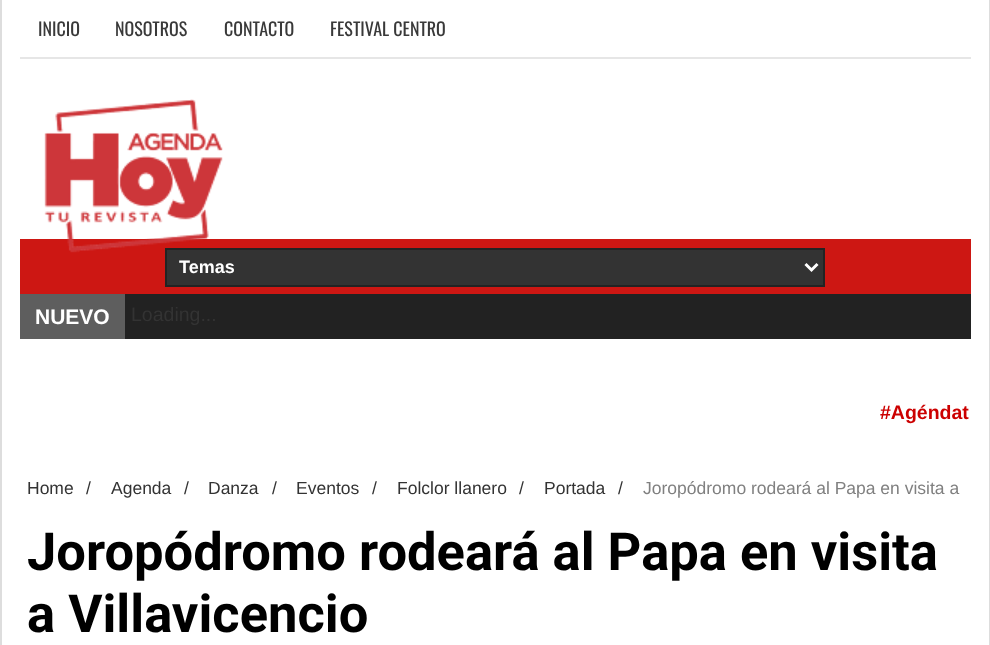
<!DOCTYPE html>
<meta charset="utf-8">
<style>body { margin: 0 } canvas { display: block }</style>
<canvas id="canvas" width="990" height="645"></canvas>
<img id="img1" src="img_01.png" hidden>
<script>
window.onload = function () {
	const canvas = document.getElementById("canvas");
	const ctx = canvas.getContext("2d");
	ctx.miterLimit = 4;
	ctx.fontKerning = "normal";
	function txt(s, x, y) {
		ctx.fillText(s, x, y);
	}
	function fill(x, y, w, h) {
		ctx.fillRect(x, y, w, h);
	}
	function img(id, x, y, w, h) {
		ctx.drawImage(document.getElementById(id), x, y, w, h);
	}

	ctx.fillStyle = "#FFFFFF";
	fill(0, 0, 990, 645);
	ctx.fillStyle = "#DDDDDD";
	fill(989, 0, 1, 645);
	fill(0, 0, 2, 645);
	ctx.fillStyle = "#E6E6E6";
	fill(20, 57, 951, 2);
	ctx.fillStyle = "#CD1713";
	fill(20, 239, 951, 55);
	ctx.fillStyle = "#333333";
	ctx.beginPath();
	ctx.rect(166, 249, 658, 37);
	ctx.fill();
	ctx.strokeStyle = "#232323";
	ctx.lineWidth = 2;
	ctx.stroke();
	img("img1", 44, 99, 179, 154);
	ctx.beginPath();
	ctx.moveTo(805.5, 264);
	ctx.lineTo(811.5, 270);
	ctx.lineTo(817.5, 264);
	ctx.strokeStyle = "#FFFFFF";
	ctx.lineWidth = 3;
	ctx.stroke();
	ctx.fillStyle = "#222222";
	fill(125, 294, 846, 45);
	ctx.fillStyle = "#5E5E5E";
	fill(20, 294, 105, 45);
	ctx.font = "18px Oswald";
	ctx.fillStyle = "#393939";
	txt("INICIO", 38, 36);
	txt("NOSOTROS", 115, 36);
	txt("CONTACTO", 224, 36);
	txt("FESTIVAL CENTRO", 330, 36);
	ctx.save();
	ctx.beginPath();
	ctx.rect(179, 255, 615, 24);
	ctx.clip();
	ctx.font = "bold 18px Liberation Sans";
	ctx.fillStyle = "#FFFFFF";
	txt("Temas", 179, 273);
	ctx.restore();
	ctx.font = "bold 21px Liberation Sans";
	ctx.fillStyle = "#FFFFFF";
	txt("NUEVO", 35, 324);
	ctx.font = "19.5px Liberation Sans";
	ctx.fillStyle = "#333333";
	txt("Loading...", 131, 321);
	ctx.font = "bold 19.5px Liberation Sans";
	ctx.fillStyle = "#CC0000";
	txt("#Agéndat", 880, 419);
	ctx.font = "17.5px Liberation Sans";
	ctx.fillStyle = "#333333";
	txt("Home", 27, 494);
	txt("/", 86, 494);
	txt("Agenda", 111, 494);
	txt("/", 184, 494);
	txt("Danza", 208, 494);
	txt("/", 272, 494);
	txt("Eventos", 296, 494);
	txt("/", 372, 494);
	txt("Folclor llanero", 397, 494);
	txt("/", 519, 494);
	txt("Portada", 544, 494);
	txt("/", 618, 494);
	ctx.fillStyle = "#808080";
	txt("Joropódromo rodeará al Papa en visita a", 643, 494);
	ctx.font = "bold 52.5px Roboto";
	ctx.fillStyle = "#000000";
	txt("Joropódromo rodeará al Papa en visita", 27, 570);
	txt("a Villavicencio", 27, 632);
};
</script>
